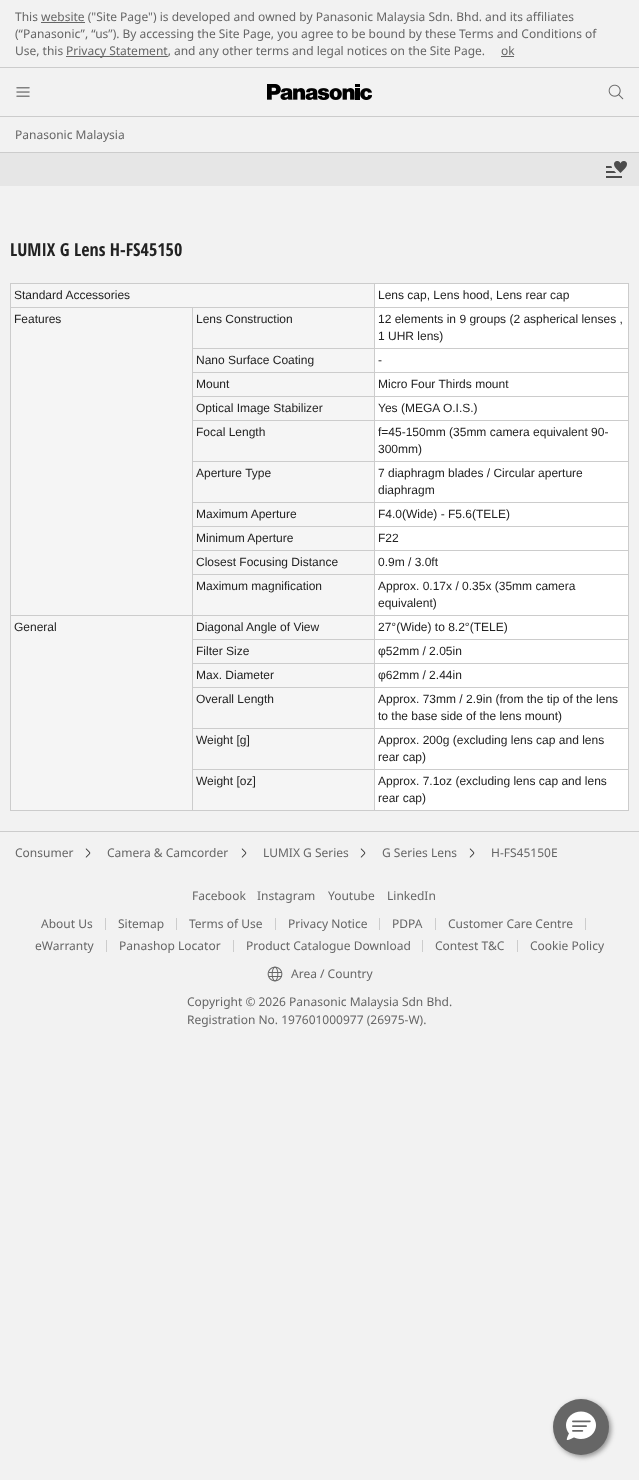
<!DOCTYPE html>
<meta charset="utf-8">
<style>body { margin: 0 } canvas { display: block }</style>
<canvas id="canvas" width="639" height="1480"></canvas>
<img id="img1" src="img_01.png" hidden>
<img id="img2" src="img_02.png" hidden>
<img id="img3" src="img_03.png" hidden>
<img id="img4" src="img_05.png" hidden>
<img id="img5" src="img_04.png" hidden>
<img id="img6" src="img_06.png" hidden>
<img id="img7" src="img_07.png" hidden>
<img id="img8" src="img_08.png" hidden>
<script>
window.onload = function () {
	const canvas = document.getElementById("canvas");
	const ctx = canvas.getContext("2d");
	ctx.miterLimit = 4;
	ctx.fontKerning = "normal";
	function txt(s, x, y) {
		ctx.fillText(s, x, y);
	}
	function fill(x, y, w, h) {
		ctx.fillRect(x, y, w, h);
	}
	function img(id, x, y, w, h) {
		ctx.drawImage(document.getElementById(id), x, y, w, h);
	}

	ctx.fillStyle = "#F2F2F2";
	fill(0, 0, 639, 1480);
	ctx.fillStyle = "#CCCCCC";
	fill(0, 67, 639, 1);
	ctx.fillStyle = "#666666";
	fill(41, 22, 44, 1);
	fill(66, 56, 102, 1);
	fill(501, 56, 13, 1);
	img("img1", 16, 87, 14, 10);
	img("img2", 267, 84, 105, 16);
	img("img3", 608, 84, 16, 16);
	ctx.fillStyle = "#CCCCCC";
	fill(0, 116, 639, 1);
	ctx.fillStyle = "#E6E6E6";
	fill(0, 153, 639, 33);
	ctx.fillStyle = "#CCCCCC";
	fill(0, 152, 639, 1);
	img("img4", 606, 166, 16, 12);
	img("img5", 614, 161, 13, 12);
	fill(10, 283, 619, 1);
	fill(628, 283, 1, 528);
	fill(10, 810, 619, 1);
	fill(10, 283, 1, 528);
	ctx.fillStyle = "#F5F5F5";
	fill(11, 284, 363, 23);
	ctx.fillStyle = "#FFFFFF";
	fill(375, 284, 253, 23);
	ctx.fillStyle = "#CCCCCC";
	fill(374, 307, 255, 1);
	fill(374, 348, 255, 1);
	fill(374, 372, 255, 1);
	fill(374, 396, 255, 1);
	fill(374, 420, 255, 1);
	fill(374, 461, 255, 1);
	fill(374, 502, 255, 1);
	fill(374, 526, 255, 1);
	fill(374, 550, 255, 1);
	fill(374, 574, 255, 1);
	fill(374, 615, 255, 1);
	fill(374, 639, 255, 1);
	fill(374, 663, 255, 1);
	fill(374, 687, 255, 1);
	fill(374, 728, 255, 1);
	fill(374, 769, 255, 1);
	fill(374, 769, 1, 42);
	fill(192, 769, 183, 1);
	fill(374, 728, 1, 42);
	fill(192, 728, 183, 1);
	fill(374, 687, 1, 42);
	fill(192, 687, 183, 1);
	fill(374, 663, 1, 25);
	fill(192, 663, 183, 1);
	fill(374, 639, 1, 25);
	fill(192, 639, 183, 1);
	fill(374, 615, 1, 25);
	fill(192, 615, 183, 1);
	fill(374, 574, 1, 42);
	fill(192, 574, 183, 1);
	fill(374, 550, 1, 25);
	fill(192, 550, 183, 1);
	fill(374, 526, 1, 25);
	fill(192, 526, 183, 1);
	fill(374, 502, 1, 25);
	fill(192, 502, 183, 1);
	fill(374, 461, 1, 42);
	fill(192, 461, 183, 1);
	fill(374, 420, 1, 42);
	fill(192, 420, 183, 1);
	fill(374, 396, 1, 25);
	fill(192, 396, 183, 1);
	fill(374, 372, 1, 25);
	fill(192, 372, 183, 1);
	fill(374, 348, 1, 25);
	fill(192, 348, 183, 1);
	fill(374, 307, 1, 42);
	fill(192, 307, 183, 1);
	fill(374, 283, 1, 25);
	ctx.fillStyle = "#F5F5F5";
	fill(11, 308, 181, 307);
	ctx.fillStyle = "#CCCCCC";
	fill(192, 769, 1, 42);
	fill(192, 728, 1, 42);
	fill(192, 687, 1, 42);
	fill(192, 663, 1, 25);
	fill(192, 639, 1, 25);
	fill(192, 615, 1, 25);
	fill(10, 615, 183, 1);
	fill(192, 574, 1, 42);
	fill(192, 550, 1, 25);
	fill(192, 526, 1, 25);
	fill(192, 502, 1, 25);
	fill(192, 461, 1, 42);
	fill(192, 420, 1, 42);
	fill(192, 396, 1, 25);
	fill(192, 372, 1, 25);
	fill(192, 348, 1, 25);
	fill(192, 307, 1, 42);
	fill(10, 307, 183, 1);
	ctx.fillStyle = "#F5F5F5";
	fill(193, 308, 181, 40);
	ctx.fillStyle = "#FFFFFF";
	fill(375, 308, 253, 40);
	ctx.fillStyle = "#F5F5F5";
	fill(193, 349, 181, 23);
	ctx.fillStyle = "#FFFFFF";
	fill(375, 349, 253, 23);
	ctx.fillStyle = "#F5F5F5";
	fill(193, 373, 181, 23);
	ctx.fillStyle = "#FFFFFF";
	fill(375, 373, 253, 23);
	ctx.fillStyle = "#F5F5F5";
	fill(193, 397, 181, 23);
	ctx.fillStyle = "#FFFFFF";
	fill(375, 397, 253, 23);
	ctx.fillStyle = "#F5F5F5";
	fill(193, 421, 181, 40);
	ctx.fillStyle = "#FFFFFF";
	fill(375, 421, 253, 40);
	ctx.fillStyle = "#F5F5F5";
	fill(193, 462, 181, 40);
	ctx.fillStyle = "#FFFFFF";
	fill(375, 462, 253, 40);
	ctx.fillStyle = "#F5F5F5";
	fill(193, 503, 181, 23);
	ctx.fillStyle = "#FFFFFF";
	fill(375, 503, 253, 23);
	ctx.fillStyle = "#F5F5F5";
	fill(193, 527, 181, 23);
	ctx.fillStyle = "#FFFFFF";
	fill(375, 527, 253, 23);
	ctx.fillStyle = "#F5F5F5";
	fill(193, 551, 181, 23);
	ctx.fillStyle = "#FFFFFF";
	fill(375, 551, 253, 23);
	ctx.fillStyle = "#F5F5F5";
	fill(193, 575, 181, 40);
	ctx.fillStyle = "#FFFFFF";
	fill(375, 575, 253, 40);
	ctx.fillStyle = "#F5F5F5";
	fill(11, 616, 181, 194);
	fill(193, 616, 181, 23);
	ctx.fillStyle = "#FFFFFF";
	fill(375, 616, 253, 23);
	ctx.fillStyle = "#F5F5F5";
	fill(193, 640, 181, 23);
	ctx.fillStyle = "#FFFFFF";
	fill(375, 640, 253, 23);
	ctx.fillStyle = "#F5F5F5";
	fill(193, 664, 181, 23);
	ctx.fillStyle = "#FFFFFF";
	fill(375, 664, 253, 23);
	ctx.fillStyle = "#F5F5F5";
	fill(193, 688, 181, 40);
	ctx.fillStyle = "#FFFFFF";
	fill(375, 688, 253, 40);
	ctx.fillStyle = "#F5F5F5";
	fill(193, 729, 181, 40);
	ctx.fillStyle = "#FFFFFF";
	fill(375, 729, 253, 40);
	ctx.fillStyle = "#F5F5F5";
	fill(193, 770, 181, 40);
	ctx.fillStyle = "#FFFFFF";
	fill(375, 770, 253, 40);
	ctx.fillStyle = "#CCCCCC";
	fill(0, 831, 639, 1);
	img("img6", 85, 848, 6, 10);
	img("img6", 241, 848, 6, 10);
	img("img6", 360, 848, 6, 10);
	img("img6", 469, 848, 6, 10);
	fill(105, 918, 1, 12);
	fill(176, 918, 1, 12);
	fill(275, 918, 1, 12);
	fill(379, 918, 1, 12);
	fill(435, 918, 1, 12);
	fill(585, 918, 1, 12);
	fill(106, 940, 1, 12);
	fill(233, 940, 1, 12);
	fill(422, 940, 1, 12);
	fill(517, 940, 1, 12);
	img("img7", 267, 966, 16, 16);
	ctx.fillStyle = "rgba(45, 45, 45, 0.5)";
	ctx.filter = "blur(2.5px)";
	ctx.beginPath();
	ctx.roundRect(555, 1401, 56, 56, 28);
	ctx.fill();
	ctx.filter = "none";
	ctx.fillStyle = "#666666";
	ctx.beginPath();
	ctx.arc(581, 1427, 28, 0, Math.PI * 2);
	ctx.fill();
	img("img8", 566, 1411, 30, 29);
	ctx.font = "12px Noto Sans";
	txt("This website (\"Site Page\") is developed and owned by Panasonic Malaysia Sdn. Bhd. and its affiliates", 15, 21);
	txt("(“Panasonic”, “us”). By accessing the Site Page, you agree to be bound by these Terms and Conditions of", 15, 38);
	txt("Use, this", 15, 55);
	txt("Privacy Statement, and any other terms and legal notices on the Site Page.", 66, 55);
	txt("ok", 501, 55);
	txt("Panasonic Malaysia", 15, 139);
	ctx.font = "bold 18px Open Sans Condensed";
	ctx.fillStyle = "#222222";
	txt("LUMIX G Lens H-FS45150", 10, 256);
	ctx.font = "12px Liberation Sans";
	txt("Standard Accessories", 14, 299);
	txt("Lens cap, Lens hood, Lens rear cap", 378, 299);
	txt("Features", 14, 323);
	txt("Lens Construction", 196, 323);
	txt("12 elements in 9 groups (2 aspherical lenses ,", 378, 323);
	txt("1 UHR lens)", 378, 340);
	txt("Nano Surface Coating", 196, 364);
	txt("-", 378, 364);
	txt("Mount", 196, 388);
	txt("Micro Four Thirds mount", 378, 388);
	txt("Optical Image Stabilizer", 196, 412);
	txt("Yes (MEGA O.I.S.)", 378, 412);
	txt("Focal Length", 196, 436);
	txt("f=45-150mm (35mm camera equivalent 90-", 378, 436);
	txt("300mm)", 378, 453);
	txt("Aperture Type", 196, 477);
	txt("7 diaphragm blades / Circular aperture", 378, 477);
	txt("diaphragm", 378, 494);
	txt("Maximum Aperture", 196, 518);
	txt("F4.0(Wide) - F5.6(TELE)", 378, 518);
	txt("Minimum Aperture", 196, 542);
	txt("F22", 378, 542);
	txt("Closest Focusing Distance", 196, 566);
	txt("0.9m / 3.0ft", 378, 566);
	txt("Maximum magnification", 196, 590);
	txt("Approx. 0.17x / 0.35x (35mm camera", 378, 590);
	txt("equivalent)", 378, 607);
	txt("General", 14, 631);
	txt("Diagonal Angle of View", 196, 631);
	txt("27°(Wide) to 8.2°(TELE)", 378, 631);
	txt("Filter Size", 196, 655);
	txt("φ52mm / 2.05in", 378, 655);
	txt("Max. Diameter", 196, 679);
	txt("φ62mm / 2.44in", 378, 679);
	txt("Overall Length", 196, 703);
	txt("Approx. 73mm / 2.9in (from the tip of the lens", 378, 703);
	txt("to the base side of the lens mount)", 378, 720);
	txt("Weight [g]", 196, 744);
	txt("Approx. 200g (excluding lens cap and lens", 378, 744);
	txt("rear cap)", 378, 761);
	txt("Weight [oz]", 196, 785);
	txt("Approx. 7.1oz (excluding lens cap and lens", 378, 785);
	txt("rear cap)", 378, 802);
	ctx.font = "12px Noto Sans";
	ctx.fillStyle = "#666666";
	txt("Consumer", 15, 857);
	txt("Camera & Camcorder", 107, 857);
	txt("LUMIX G Series", 263, 857);
	txt("G Series Lens", 382, 857);
	txt("H-FS45150E", 491, 857);
	txt("Facebook", 192, 900);
	txt("Instagram", 257, 900);
	txt("Youtube", 328, 900);
	txt("LinkedIn", 387, 900);
	txt("About Us", 41, 928);
	txt("Sitemap", 118, 928);
	txt("Terms of Use", 189, 928);
	txt("Privacy Notice", 288, 928);
	txt("PDPA", 392, 928);
	txt("Customer Care Centre", 448, 928);
	txt("eWarranty", 35, 950);
	txt("Panashop Locator", 119, 950);
	txt("Product Catalogue Download", 246, 950);
	txt("Contest T&C", 435, 950);
	txt("Cookie Policy", 530, 950);
	txt("Area / Country", 291, 978);
	txt("Copyright © 2026 Panasonic Malaysia Sdn Bhd.", 187, 1006);
	txt("Registration No. 197601000977 (26975-W).", 187, 1024);
};
</script>
